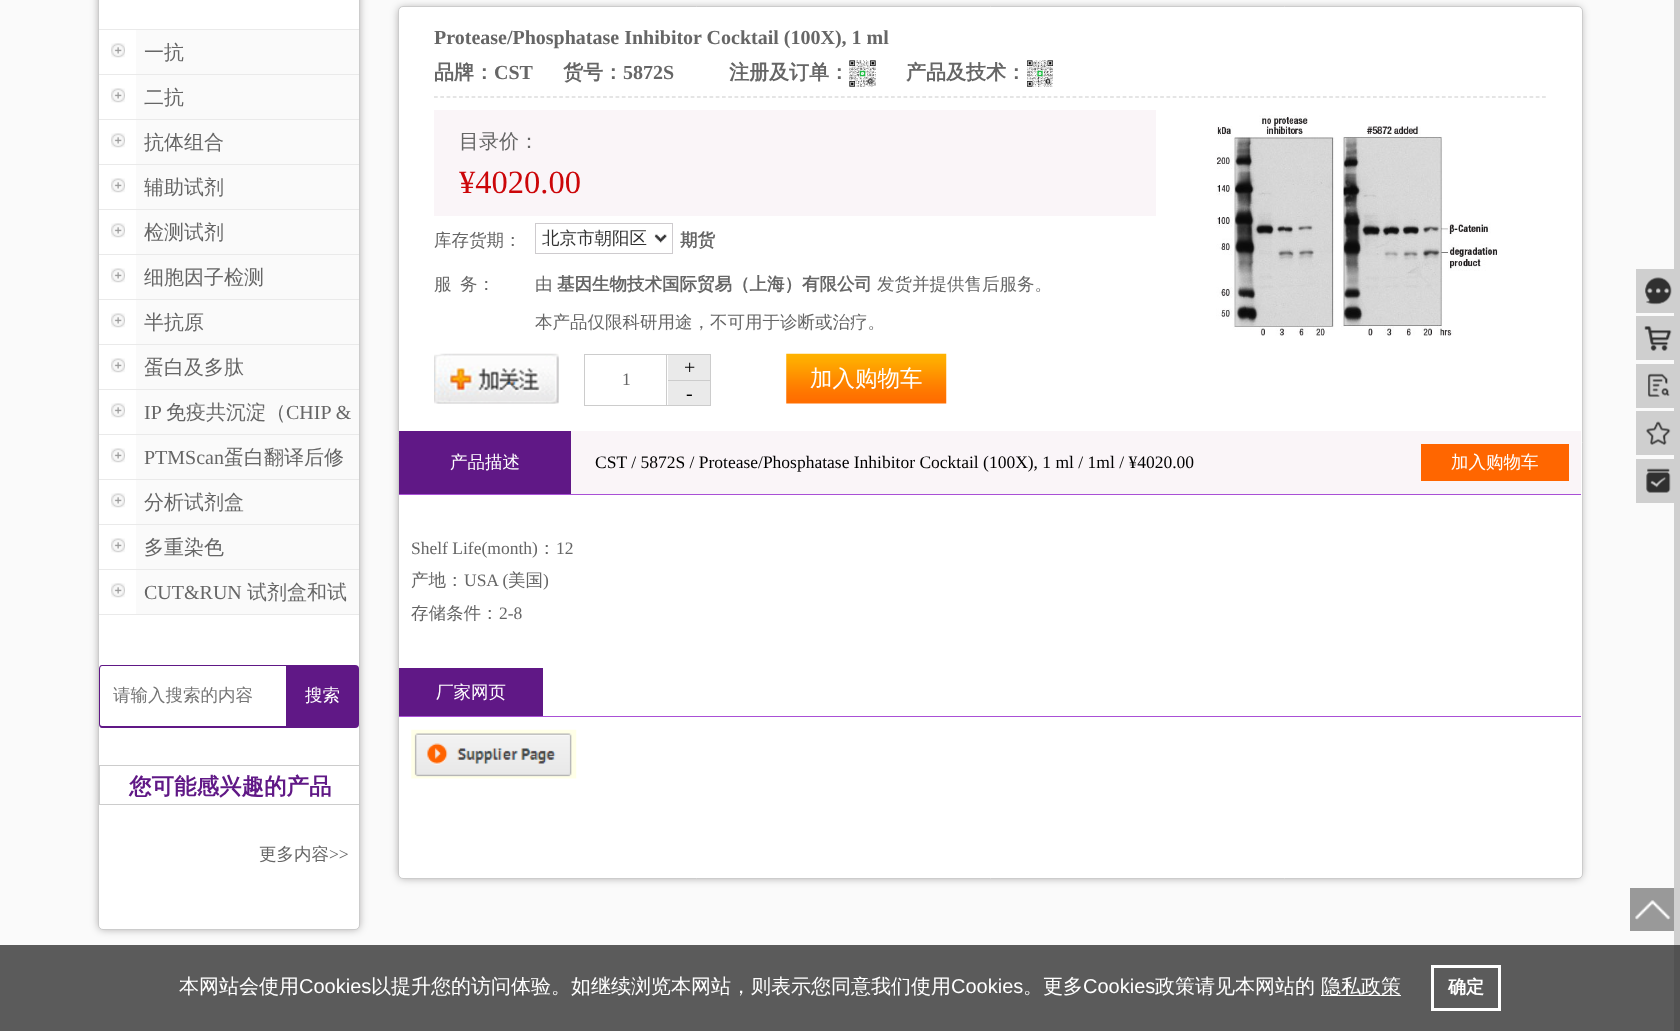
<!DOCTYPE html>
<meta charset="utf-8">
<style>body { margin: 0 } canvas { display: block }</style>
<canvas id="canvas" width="1680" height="1031"></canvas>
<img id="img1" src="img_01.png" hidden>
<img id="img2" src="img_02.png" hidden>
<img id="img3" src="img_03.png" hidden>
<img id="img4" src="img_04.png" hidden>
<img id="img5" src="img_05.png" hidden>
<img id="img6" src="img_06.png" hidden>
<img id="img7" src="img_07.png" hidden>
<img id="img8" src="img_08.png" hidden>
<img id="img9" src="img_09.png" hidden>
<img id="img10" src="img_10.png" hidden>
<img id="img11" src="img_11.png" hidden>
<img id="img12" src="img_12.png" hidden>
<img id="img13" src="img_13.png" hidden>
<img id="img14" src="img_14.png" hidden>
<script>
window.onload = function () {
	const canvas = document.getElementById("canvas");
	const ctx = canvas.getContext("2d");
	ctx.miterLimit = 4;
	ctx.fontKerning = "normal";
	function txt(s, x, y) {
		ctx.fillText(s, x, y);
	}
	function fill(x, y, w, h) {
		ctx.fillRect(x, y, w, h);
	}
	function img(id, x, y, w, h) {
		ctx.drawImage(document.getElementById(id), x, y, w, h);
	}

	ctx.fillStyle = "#FAFAFA";
	fill(0, 0, 1680, 1031);
	ctx.fillStyle = "#5B5B5B";
	fill(0, 945, 1674, 86);
	ctx.fillStyle = "rgba(6, 0, 1, 0.35)";
	ctx.filter = "blur(4px)";
	ctx.beginPath();
	ctx.roundRect(99, -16, 260, 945, 4);
	ctx.fill();
	ctx.filter = "none";
	ctx.fillStyle = "#FFFFFF";
	ctx.beginPath();
	ctx.roundRect(98.5, -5.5, 261, 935, 4.5);
	ctx.fill();
	ctx.strokeStyle = "#CCCCCC";
	ctx.stroke();
	ctx.fillStyle = "#EAEAEA";
	fill(99, 29, 260, 1);
	fill(99, 74, 260, 1);
	img("img1", 111, 43, 14, 15);
	ctx.fillStyle = "#FAFAFA";
	fill(136, 30, 223, 44);
	ctx.fillStyle = "#EAEAEA";
	fill(99, 119, 260, 1);
	img("img1", 111, 88, 14, 15);
	ctx.fillStyle = "#FAFAFA";
	fill(136, 75, 223, 44);
	ctx.fillStyle = "#EAEAEA";
	fill(99, 164, 260, 1);
	img("img1", 111, 133, 14, 15);
	ctx.fillStyle = "#FAFAFA";
	fill(136, 120, 223, 44);
	ctx.fillStyle = "#EAEAEA";
	fill(99, 209, 260, 1);
	img("img1", 111, 178, 14, 15);
	ctx.fillStyle = "#FAFAFA";
	fill(136, 165, 223, 44);
	ctx.fillStyle = "#EAEAEA";
	fill(99, 254, 260, 1);
	img("img1", 111, 223, 14, 15);
	ctx.fillStyle = "#FAFAFA";
	fill(136, 210, 223, 44);
	ctx.fillStyle = "#EAEAEA";
	fill(99, 299, 260, 1);
	img("img1", 111, 268, 14, 15);
	ctx.fillStyle = "#FAFAFA";
	fill(136, 255, 223, 44);
	ctx.fillStyle = "#EAEAEA";
	fill(99, 344, 260, 1);
	img("img1", 111, 313, 14, 15);
	ctx.fillStyle = "#FAFAFA";
	fill(136, 300, 223, 44);
	ctx.fillStyle = "#EAEAEA";
	fill(99, 389, 260, 1);
	img("img1", 111, 358, 14, 15);
	ctx.fillStyle = "#FAFAFA";
	fill(136, 345, 223, 44);
	ctx.fillStyle = "#EAEAEA";
	fill(99, 434, 260, 1);
	img("img1", 111, 403, 14, 15);
	ctx.fillStyle = "#FAFAFA";
	fill(136, 390, 223, 44);
	ctx.fillStyle = "#EAEAEA";
	fill(99, 479, 260, 1);
	img("img1", 111, 448, 14, 15);
	ctx.fillStyle = "#FAFAFA";
	fill(136, 435, 223, 44);
	ctx.fillStyle = "#EAEAEA";
	fill(99, 524, 260, 1);
	img("img1", 111, 493, 14, 15);
	ctx.fillStyle = "#FAFAFA";
	fill(136, 480, 223, 44);
	ctx.fillStyle = "#EAEAEA";
	fill(99, 569, 260, 1);
	img("img1", 111, 538, 14, 15);
	ctx.fillStyle = "#FAFAFA";
	fill(136, 525, 223, 44);
	ctx.fillStyle = "#EAEAEA";
	fill(99, 614, 260, 1);
	img("img1", 111, 583, 14, 15);
	ctx.fillStyle = "#FAFAFA";
	fill(136, 570, 223, 44);
	ctx.fillStyle = "#601886";
	ctx.beginPath();
	ctx.moveTo(102, 665);
	ctx.lineTo(286, 665);
	ctx.lineTo(286, 728);
	ctx.lineTo(102, 728);
	ctx.bezierCurveTo(100, 728, 99, 726, 99, 724);
	ctx.lineTo(99, 669);
	ctx.bezierCurveTo(99, 667, 100, 665, 102, 665);
	ctx.closePath();
	ctx.moveTo(102, 666);
	ctx.lineTo(286, 666);
	ctx.lineTo(286, 726);
	ctx.lineTo(102, 726);
	ctx.bezierCurveTo(101, 726, 100, 725, 100, 724);
	ctx.lineTo(100, 669);
	ctx.bezierCurveTo(100, 667, 101, 666, 102, 666);
	ctx.closePath();
	ctx.fill("evenodd");
	ctx.beginPath();
	ctx.roundRect(286, 665, 73, 63, [0, 4, 4, 0]);
	ctx.fill();
	ctx.fillStyle = "#CCCCCC";
	ctx.beginPath();
	ctx.moveTo(100, 766);
	ctx.lineTo(359, 766);
	ctx.lineTo(359, 765);
	ctx.lineTo(99, 765);
	ctx.lineTo(99, 805);
	ctx.lineTo(359, 805);
	ctx.lineTo(359, 804);
	ctx.lineTo(100, 804);
	ctx.closePath();
	ctx.fill();
	ctx.fillStyle = "rgba(6, 0, 1, 0.35)";
	ctx.filter = "blur(4px)";
	ctx.beginPath();
	ctx.roundRect(399, 8, 1182, 870, 4);
	ctx.fill();
	ctx.filter = "none";
	ctx.fillStyle = "#FFFFFF";
	ctx.beginPath();
	ctx.roundRect(398.5, 6.5, 1184, 872, 4.5);
	ctx.fill();
	ctx.stroke();
	ctx.beginPath();
	ctx.moveTo(434, 97);
	ctx.lineTo(1546, 97);
	ctx.lineWidth = 1.2;
	ctx.setLineDash([3.75, 2.51]);
	ctx.stroke();
	img("img2", 849, 60, 27, 27);
	img("img3", 1027, 60, 26, 27);
	ctx.fillStyle = "#FAF5F8";
	fill(434, 110, 722, 106);
	ctx.strokeStyle = "#CECBCE";
	ctx.lineWidth = 1;
	ctx.setLineDash([]);
	ctx.strokeRect(535.5, 223.5, 137, 30);
	img("img4", 654, 234, 13, 9);
	img("img5", 434, 353, 125, 51);
	ctx.strokeStyle = "#CCCCCC";
	ctx.strokeRect(584.5, 354.5, 126, 51);
	ctx.fillStyle = "#CCCCCC";
	fill(666, 355, 1, 50);
	ctx.fillStyle = "#EAEAEA";
	fill(668, 355, 42, 25);
	ctx.fillStyle = "#CCCCCC";
	fill(668, 380, 42, 1);
	ctx.fillStyle = "#EAEAEA";
	fill(668, 381, 42, 24);
	img("img6", 786, 353, 161, 51);
	img("img7", 1216, 115, 282, 221);
	ctx.fillStyle = "#FAF5F8";
	fill(571, 431, 1010, 63);
	ctx.fillStyle = "#A950D6";
	fill(399, 494, 1182, 1);
	ctx.fillStyle = "#601886";
	fill(399, 431, 172, 63);
	ctx.fillStyle = "#FF6600";
	fill(1421, 444, 148, 37);
	ctx.fillStyle = "#A950D6";
	fill(399, 716, 1182, 1);
	ctx.fillStyle = "#601886";
	fill(399, 668, 144, 48);
	img("img8", 411, 729, 166, 50);
	ctx.fillStyle = "#CFCFCF";
	fill(1674, 0, 6, 945);
	ctx.fillStyle = "#525252";
	fill(1674, 945, 6, 86);
	ctx.fillStyle = "#CFCFCF";
	fill(1636, 269, 38, 44);
	img("img9", 1645, 277, 27, 28);
	fill(1636, 316, 38, 44);
	img("img10", 1644, 326, 28, 25);
	fill(1636, 364, 38, 44);
	img("img11", 1648, 373, 22, 24);
	fill(1636, 411, 38, 44);
	img("img12", 1646, 421, 25, 24);
	fill(1636, 459, 38, 44);
	img("img13", 1646, 468, 25, 25);
	ctx.fillStyle = "#999999";
	fill(1630, 888, 44, 43);
	img("img14", 1635, 900, 36, 20);
	ctx.fillStyle = "#FEFEFE";
	fill(1321, 995, 80, 1);
	ctx.strokeStyle = "#FEFEFE";
	ctx.lineWidth = 3;
	ctx.strokeRect(1432.5, 966.5, 67, 43);
	ctx.font = "500 20px WenQuanYi Zen Hei";
	ctx.fillStyle = "#666666";
	txt("一抗", 144, 59);
	txt("二抗", 144, 104);
	txt("抗体组合", 144, 149);
	txt("辅助试剂", 144, 194);
	txt("检测试剂", 144, 239);
	txt("细胞因子检测", 144, 284);
	txt("半抗原", 144, 329);
	txt("蛋白及多肽", 144, 374);
	ctx.font = "20px Liberation Serif";
	txt("IP", 144, 419);
	ctx.font = "500 20px WenQuanYi Zen Hei";
	txt("免疫共沉淀（", 166, 419);
	ctx.font = "20px Liberation Serif";
	txt("CHIP &", 286, 419);
	txt("PTMScan", 144, 464);
	ctx.font = "500 20px WenQuanYi Zen Hei";
	txt("蛋白翻译后修", 224, 464);
	txt("分析试剂盒", 144, 509);
	txt("多重染色", 144, 554);
	ctx.font = "20px Liberation Serif";
	txt("CUT&RUN", 144, 599);
	ctx.font = "500 20px WenQuanYi Zen Hei";
	txt("试剂盒和试", 247, 599);
	ctx.font = "500 17.5px WenQuanYi Zen Hei";
	ctx.fillStyle = "#757575";
	txt("请输入搜索的内容", 113, 701);
	ctx.fillStyle = "#FFFFFF";
	txt("搜索", 305, 701);
	ctx.font = "bold 22.5px WenQuanYi Zen Hei";
	ctx.fillStyle = "#601886";
	txt("您可能感兴趣的产品", 129, 794);
	ctx.font = "500 17.5px WenQuanYi Zen Hei";
	ctx.fillStyle = "#666666";
	txt("更多内容", 259, 860);
	ctx.font = "17.5px Liberation Serif";
	txt(">>", 329, 860);
	ctx.font = "bold 20px Liberation Serif";
	txt("Protease/Phosphatase Inhibitor Cocktail (100X), 1 ml", 434, 44);
	ctx.font = "bold 20px WenQuanYi Zen Hei";
	txt("品牌：", 434, 79);
	ctx.font = "bold 20px Liberation Serif";
	txt("CST", 494, 79);
	ctx.font = "bold 20px WenQuanYi Zen Hei";
	txt("货号：", 563, 79);
	ctx.font = "bold 20px Liberation Serif";
	txt("5872S", 623, 79);
	ctx.font = "bold 20px WenQuanYi Zen Hei";
	txt("注册及订单：", 729, 79);
	txt("产品及技术：", 906, 79);
	ctx.font = "500 20px WenQuanYi Zen Hei";
	txt("目录价：", 459, 148);
	ctx.font = "32.5px Liberation Serif";
	ctx.fillStyle = "#CC0609";
	txt("¥4020.00", 459, 193);
	ctx.font = "500 17.5px WenQuanYi Zen Hei";
	ctx.fillStyle = "#666666";
	txt("库存货期：", 434, 246);
	ctx.fillStyle = "#333333";
	txt("北京市朝阳区", 542, 244);
	ctx.font = "bold 17.5px WenQuanYi Zen Hei";
	ctx.fillStyle = "#666666";
	txt("期货", 680, 246);
	ctx.font = "500 17.5px WenQuanYi Zen Hei";
	txt("服", 434, 290);
	txt("务：", 460, 290);
	txt("由", 535, 290);
	ctx.font = "bold 17.5px WenQuanYi Zen Hei";
	txt("基因生物技术国际贸易（上海）有限公司", 557, 290);
	ctx.font = "500 17.5px WenQuanYi Zen Hei";
	txt("发货并提供售后服务。", 877, 290);
	txt("本产品仅限科研用途，不可用于诊断或治疗。", 535, 328);
	ctx.font = "17.5px Liberation Serif";
	txt("1", 622, 385);
	ctx.font = "20px Liberation Serif";
	ctx.fillStyle = "#000000";
	txt("+", 684, 374);
	txt("-", 686, 400);
	ctx.font = "500 22.5px WenQuanYi Zen Hei";
	ctx.fillStyle = "#FFFFFF";
	txt("加入购物车", 810, 386);
	ctx.font = "500 17.5px WenQuanYi Zen Hei";
	txt("产品描述", 450, 468);
	ctx.font = "17.5px Liberation Serif";
	ctx.fillStyle = "#000000";
	txt("CST / 5872S / Protease/Phosphatase Inhibitor Cocktail (100X), 1 ml / 1ml / ¥4020.00", 595, 468);
	ctx.font = "500 17.5px WenQuanYi Zen Hei";
	ctx.fillStyle = "#FFFFFF";
	txt("加入购物车", 1451, 468);
	ctx.font = "17.5px Liberation Serif";
	ctx.fillStyle = "#666666";
	txt("Shelf Life(month)", 411, 554);
	ctx.font = "500 17.5px WenQuanYi Zen Hei";
	txt("：", 538, 554);
	ctx.font = "17.5px Liberation Serif";
	txt("12", 556, 554);
	ctx.font = "500 17.5px WenQuanYi Zen Hei";
	txt("产地：", 411, 586);
	ctx.font = "17.5px Liberation Serif";
	txt("USA (", 464, 586);
	ctx.font = "500 17.5px WenQuanYi Zen Hei";
	txt("美国", 508, 586);
	ctx.font = "17.5px Liberation Serif";
	txt(")", 543, 586);
	ctx.font = "500 17.5px WenQuanYi Zen Hei";
	txt("存储条件：", 411, 619);
	ctx.font = "17.5px Liberation Serif";
	txt("2-8", 499, 619);
	ctx.font = "500 17.5px WenQuanYi Zen Hei";
	ctx.fillStyle = "#FFFFFF";
	txt("厂家网页", 436, 698);
	ctx.font = "500 20px WenQuanYi Zen Hei";
	txt("本网站会使用", 179, 993);
	ctx.font = "20px Liberation Sans";
	txt("Cookies", 299, 993);
	ctx.font = "500 20px WenQuanYi Zen Hei";
	txt("以提升您的访问体验。如继续浏览本网站，则表示您同意我们使用", 371, 993);
	ctx.font = "20px Liberation Sans";
	txt("Cookies", 951, 993);
	ctx.font = "500 20px WenQuanYi Zen Hei";
	txt("。更多", 1023, 993);
	ctx.font = "20px Liberation Sans";
	txt("Cookies", 1083, 993);
	ctx.font = "500 20px WenQuanYi Zen Hei";
	txt("政策请见本网站的", 1155, 993);
	txt("隐私政策", 1321, 993);
	ctx.font = "bold 18px WenQuanYi Zen Hei";
	txt("确定", 1448, 993);
};
</script>
